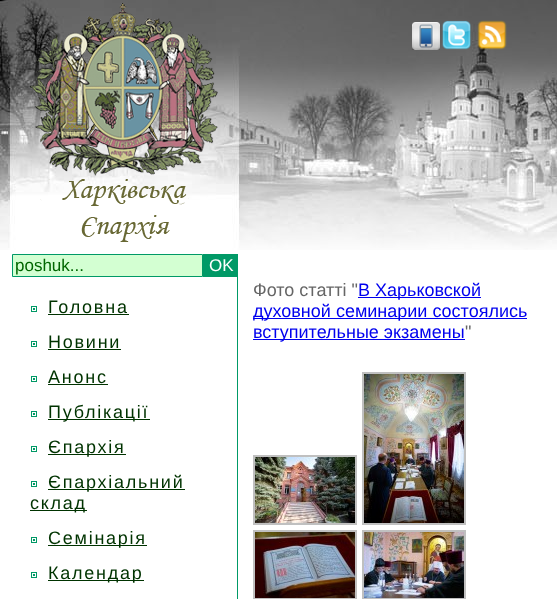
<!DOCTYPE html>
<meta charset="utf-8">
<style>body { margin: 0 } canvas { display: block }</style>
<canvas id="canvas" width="557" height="599"></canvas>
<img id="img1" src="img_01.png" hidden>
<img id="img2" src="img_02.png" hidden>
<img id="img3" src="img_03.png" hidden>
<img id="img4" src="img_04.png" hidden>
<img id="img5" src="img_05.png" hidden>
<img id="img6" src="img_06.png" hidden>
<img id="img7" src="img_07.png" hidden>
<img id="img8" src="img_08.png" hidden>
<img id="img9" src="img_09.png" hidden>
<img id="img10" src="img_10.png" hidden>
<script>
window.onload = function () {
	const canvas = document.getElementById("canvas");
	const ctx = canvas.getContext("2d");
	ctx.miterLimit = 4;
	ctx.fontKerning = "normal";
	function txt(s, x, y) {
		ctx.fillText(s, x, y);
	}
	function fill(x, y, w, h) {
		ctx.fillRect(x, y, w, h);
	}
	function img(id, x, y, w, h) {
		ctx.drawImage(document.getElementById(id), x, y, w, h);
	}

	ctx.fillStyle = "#FFFFFF";
	fill(0, 0, 557, 599);
	img("img1", 0, 0, 557, 250);
	img("img2", 412, 22, 28, 28);
	img("img3", 442, 20, 29, 30);
	img("img4", 477, 20, 30, 30);
	img("img5", 30, 3, 188, 239);
	ctx.fillStyle = "#D3FFD2";
	ctx.beginPath();
	ctx.rect(12.5, 254.5, 190, 22);
	ctx.fill();
	ctx.strokeStyle = "#009966";
	ctx.stroke();
	ctx.fillStyle = "#009966";
	fill(203, 254, 35, 23);
	fill(237, 277, 1, 322);
	img("img6", 31, 306, 6, 6);
	ctx.fillStyle = "#003300";
	fill(48, 314, 81, 1);
	img("img6", 31, 341, 6, 6);
	fill(48, 349, 73, 1);
	img("img6", 31, 376, 6, 6);
	fill(48, 384, 60, 1);
	img("img6", 31, 411, 6, 6);
	fill(48, 419, 102, 1);
	img("img6", 31, 446, 6, 6);
	fill(48, 454, 78, 1);
	img("img6", 31, 481, 6, 6);
	fill(48, 489, 137, 1);
	fill(30, 510, 57, 1);
	img("img6", 31, 537, 6, 6);
	fill(48, 545, 99, 1);
	img("img6", 31, 572, 6, 6);
	fill(48, 580, 96, 1);
	ctx.fillStyle = "#0000EE";
	fill(358, 297, 123, 1);
	fill(253, 318, 274, 1);
	fill(253, 339, 212, 1);
	ctx.strokeStyle = "#C0C0C0";
	ctx.lineWidth = 2;
	ctx.strokeRect(363, 373, 102, 151);
	ctx.strokeRect(254, 456, 102, 68);
	img("img7", 364, 374, 100, 149);
	img("img8", 255, 457, 100, 66);
	ctx.strokeRect(254, 531, 102, 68);
	ctx.strokeRect(363, 531, 102, 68);
	img("img9", 255, 532, 100, 66);
	img("img10", 364, 532, 100, 66);
	ctx.font = "17px Liberation Sans";
	ctx.fillStyle = "#006600";
	txt("poshuk...", 15, 271);
	ctx.fillStyle = "#FFFFFF";
	txt("OK", 209, 271);
	ctx.letterSpacing = "1.75px";
	ctx.font = "18px Liberation Sans";
	ctx.fillStyle = "#003300";
	txt("Головна", 48, 313);
	txt("Новини", 48, 348);
	txt("Анонс", 48, 383);
	txt("Публікації", 48, 418);
	txt("Єпархія", 48, 453);
	txt("Єпархіальний", 48, 488);
	txt("склад", 30, 509);
	txt("Семінарія", 48, 544);
	txt("Календар", 48, 579);
	ctx.letterSpacing = "0px";
	ctx.fillStyle = "#666666";
	txt("Фото статті \"", 253, 296);
	ctx.fillStyle = "#0000EE";
	txt("В Харьковской", 358, 296);
	txt("духовной семинарии состоялись", 253, 317);
	ctx.fillStyle = "#666666";
	txt("\"", 465, 338);
	ctx.fillStyle = "#0000EE";
	txt("вступительные экзамены", 253, 338);
};
</script>
